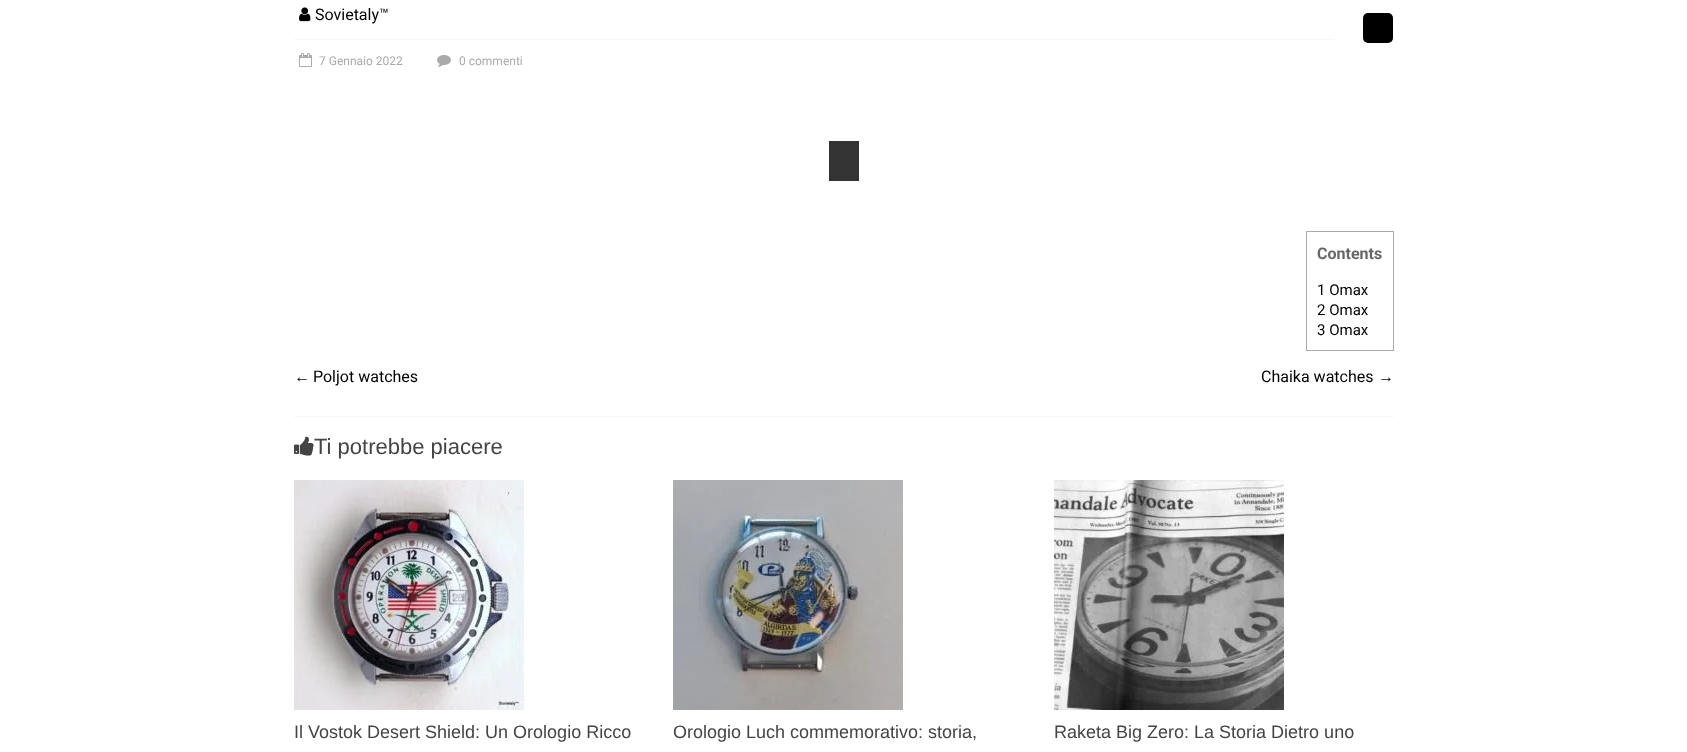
<!DOCTYPE html>
<meta charset="utf-8">
<style>body { margin: 0 } canvas { display: block }</style>
<canvas id="canvas" width="1687" height="752"></canvas>
<img id="img1" src="img_01.png" hidden>
<img id="img2" src="img_02.png" hidden>
<img id="img3" src="img_03.png" hidden>
<img id="img4" src="img_04.png" hidden>
<img id="img5" src="img_05.png" hidden>
<img id="img6" src="img_06.png" hidden>
<img id="img7" src="img_07.png" hidden>
<script>
window.onload = function () {
	const canvas = document.getElementById("canvas");
	const ctx = canvas.getContext("2d");
	ctx.miterLimit = 4;
	ctx.fontKerning = "normal";
	function txt(s, x, y) {
		ctx.fillText(s, x, y);
	}
	function fill(x, y, w, h) {
		ctx.fillRect(x, y, w, h);
	}
	function round(x, y, w, h, r) {
		ctx.beginPath();
		ctx.roundRect(x, y, w, h, r);
		ctx.fill();
	}
	function img(id, x, y, w, h) {
		ctx.drawImage(document.getElementById(id), x, y, w, h);
	}

	ctx.fillStyle = "#FFFFFF";
	fill(0, 0, 1687, 752);
	img("img1", 299, 7, 12, 15);
	ctx.fillStyle = "#F8F8F8";
	fill(294, 39, 1040, 1);
	ctx.fillStyle = "#000000";
	round(1363, 13, 30, 30, 5);
	img("img2", 299, 53, 13, 14);
	img("img3", 437, 55, 14, 12);
	ctx.fillStyle = "#333333";
	fill(829, 141, 30, 40);
	ctx.strokeStyle = "#AAAAAA";
	ctx.strokeRect(1306.5, 231.5, 87, 119);
	ctx.fillStyle = "#F8F8F8";
	fill(294, 416, 1100, 1);
	img("img4", 294, 436, 20, 20);
	img("img5", 294, 480, 230, 230);
	img("img6", 673, 480, 230, 230);
	img("img7", 1054, 480, 230, 230);
	ctx.font = "16px Roboto";
	ctx.fillStyle = "#000000";
	txt("Sovietaly™", 315, 20);
	ctx.font = "12px Roboto";
	ctx.fillStyle = "#AAAAAA";
	txt("7 Gennaio 2022", 319, 65);
	txt("0 commenti", 459, 65);
	ctx.font = "bold 16px Roboto";
	ctx.fillStyle = "#666666";
	txt("Contents", 1317, 259);
	ctx.font = "15px Roboto";
	ctx.fillStyle = "#000000";
	txt("1 Omax", 1317, 295);
	txt("2 Omax", 1317, 315);
	txt("3 Omax", 1317, 335);
	ctx.font = "16px Liberation Sans";
	txt("←", 294, 382);
	ctx.font = "16px Roboto";
	txt("Poljot watches", 313, 382);
	txt("Chaika watches", 1261, 382);
	ctx.font = "16px Liberation Sans";
	txt("→", 1378, 382);
	ctx.font = "22px Liberation Sans";
	ctx.fillStyle = "#444444";
	txt("Ti potrebbe piacere", 314, 454);
	ctx.font = "18px Liberation Sans";
	txt("Il Vostok Desert Shield: Un Orologio Ricco", 294, 738);
	txt("Orologio Luch commemorativo: storia,", 673, 738);
	txt("Raketa Big Zero: La Storia Dietro uno", 1054, 738);
};
</script>
